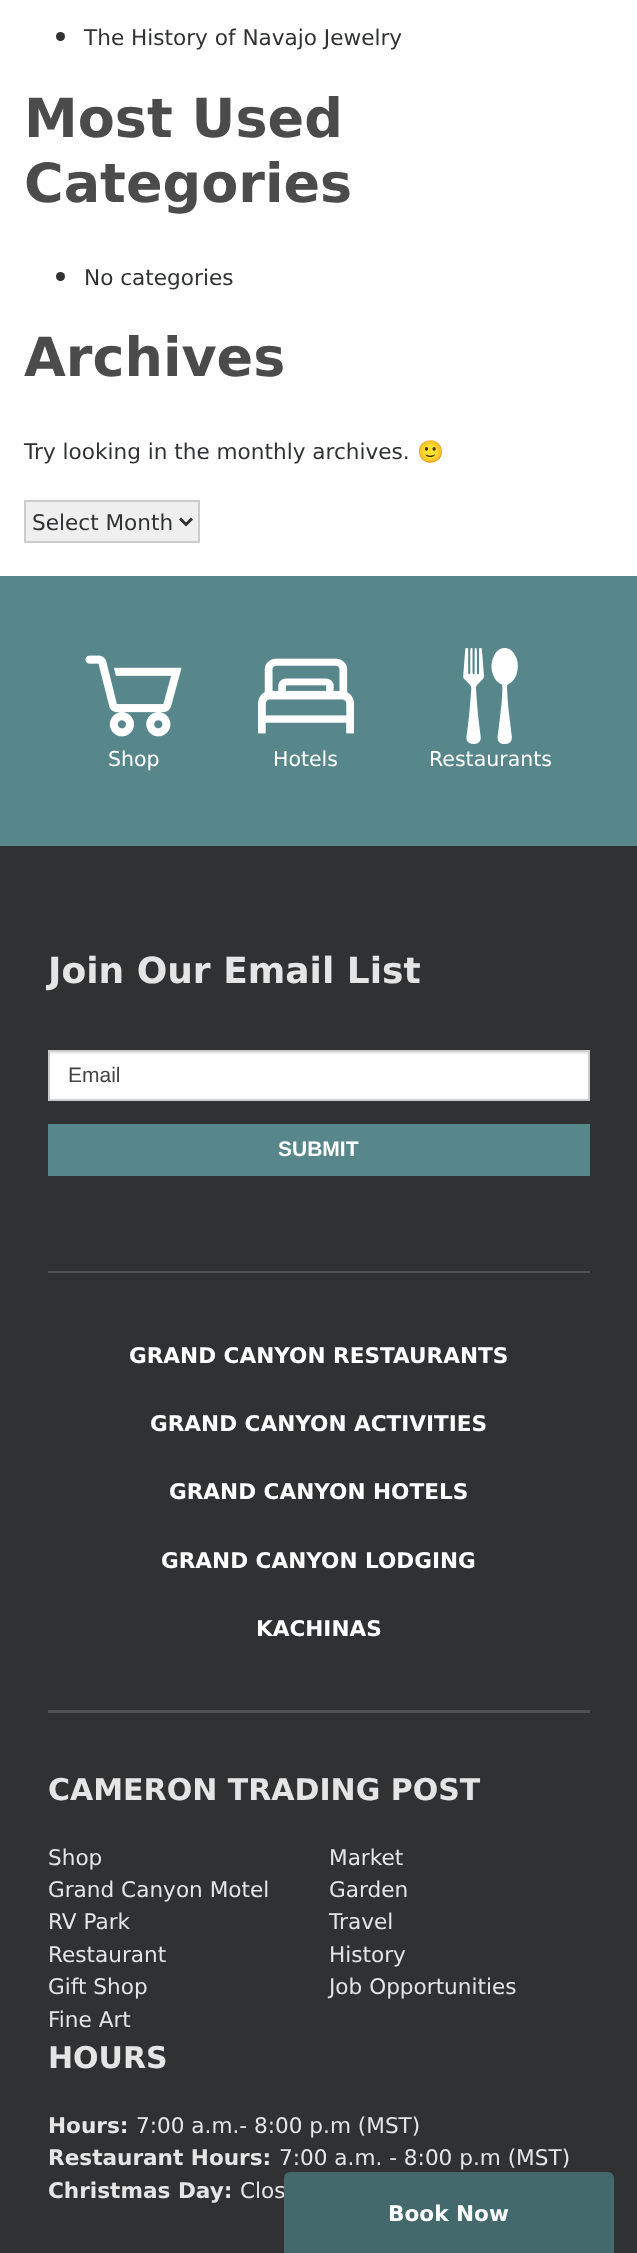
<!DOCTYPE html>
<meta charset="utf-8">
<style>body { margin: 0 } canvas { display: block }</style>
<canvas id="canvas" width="637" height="2253"></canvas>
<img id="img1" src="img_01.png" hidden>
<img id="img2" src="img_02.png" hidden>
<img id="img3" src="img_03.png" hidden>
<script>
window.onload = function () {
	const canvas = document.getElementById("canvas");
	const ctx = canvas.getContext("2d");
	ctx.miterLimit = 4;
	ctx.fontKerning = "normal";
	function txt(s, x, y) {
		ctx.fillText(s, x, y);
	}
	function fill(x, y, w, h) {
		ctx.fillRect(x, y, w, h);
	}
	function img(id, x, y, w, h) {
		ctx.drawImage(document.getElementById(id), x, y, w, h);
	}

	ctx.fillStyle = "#FFFFFF";
	fill(0, 0, 637, 2253);
	ctx.fillStyle = "#2F3132";
	ctx.beginPath();
	ctx.arc(60.5, 36.5, 4.5, 0, Math.PI * 2);
	ctx.fill();
	ctx.beginPath();
	ctx.arc(60.5, 276.5, 4.5, 0, Math.PI * 2);
	ctx.fill();
	ctx.fillStyle = "#EFEFEF";
	ctx.beginPath();
	ctx.rect(25, 501, 174, 41);
	ctx.fill();
	ctx.strokeStyle = "#CCCCCC";
	ctx.lineWidth = 2;
	ctx.stroke();
	ctx.beginPath();
	ctx.moveTo(180, 518.5);
	ctx.lineTo(186, 524.5);
	ctx.lineTo(192, 518.5);
	ctx.strokeStyle = "#2F3132";
	ctx.lineWidth = 3;
	ctx.stroke();
	ctx.fillStyle = "#58878B";
	fill(0, 576, 637, 270);
	img("img1", 85, 655, 97, 82);
	img("img2", 258, 658, 96, 76);
	img("img3", 463, 648, 55, 96);
	ctx.fillStyle = "#2F3132";
	fill(0, 846, 637, 1407);
	ctx.fillStyle = "#FFFFFF";
	fill(50, 1054, 538, 45);
	ctx.fillStyle = "#ECECEC";
	fill(50, 1052, 538, 2);
	ctx.strokeStyle = "#CCCCCC";
	ctx.lineWidth = 2;
	ctx.strokeRect(49, 1051, 540, 49);
	ctx.fillStyle = "#58878B";
	fill(48, 1124, 542, 52);
	ctx.fillStyle = "#515151";
	fill(48, 1271, 542, 2);
	fill(48, 1710, 542, 3);
	ctx.font = "21.6px DejaVu Sans";
	ctx.fillStyle = "#2F3132";
	txt("The History of Navajo Jewelry", 84, 45);
	ctx.font = "bold 54px DejaVu Sans";
	ctx.fillStyle = "#4B4B4B";
	txt("Most Used", 24, 137);
	txt("Categories", 24, 202);
	ctx.font = "21.6px DejaVu Sans";
	ctx.fillStyle = "#2F3132";
	txt("No categories", 84, 285);
	ctx.font = "bold 54px DejaVu Sans";
	ctx.fillStyle = "#4B4B4B";
	txt("Archives", 24, 376);
	ctx.font = "21.6px DejaVu Sans";
	ctx.fillStyle = "#2F3132";
	txt("Try looking in the monthly archives.", 24, 459);
	ctx.font = "21.6px Noto Color Emoji";
	txt("🙂", 417, 459);
	ctx.font = "21.6px DejaVu Sans";
	txt("Select Month", 32, 530);
	ctx.font = "20.5px DejaVu Sans";
	ctx.fillStyle = "#FFFFFF";
	txt("Shop", 108, 766);
	txt("Hotels", 273, 766);
	txt("Restaurants", 429, 766);
	ctx.font = "bold 36px DejaVu Sans";
	ctx.fillStyle = "#E5E5E5";
	txt("Join Our Email List", 48, 983);
	ctx.font = "21px Liberation Sans";
	ctx.fillStyle = "#444444";
	txt("Email", 68, 1082);
	ctx.font = "bold 21px Liberation Sans";
	ctx.fillStyle = "#FFFFFF";
	txt("SUBMIT", 278, 1156);
	ctx.font = "bold 21.6px DejaVu Sans";
	txt("GRAND CANYON RESTAURANTS", 129, 1363);
	txt("GRAND CANYON ACTIVITIES", 150, 1431);
	txt("GRAND CANYON HOTELS", 169, 1499);
	txt("GRAND CANYON LODGING", 161, 1568);
	txt("KACHINAS", 256, 1636);
	ctx.font = "bold 30px DejaVu Sans";
	ctx.fillStyle = "#E5E5E5";
	txt("CAMERON TRADING POST", 48, 1800);
	ctx.font = "21.6px DejaVu Sans";
	txt("Shop", 48, 1865);
	txt("Market", 329, 1865);
	txt("Grand Canyon Motel", 48, 1897);
	txt("Garden", 329, 1897);
	txt("RV Park", 48, 1929);
	txt("Travel", 329, 1929);
	txt("Restaurant", 48, 1962);
	txt("History", 329, 1962);
	txt("Gift Shop", 48, 1994);
	txt("Job Opportunities", 329, 1994);
	txt("Fine Art", 48, 2027);
	ctx.font = "bold 30px DejaVu Sans";
	txt("HOURS", 48, 2068);
	ctx.font = "bold 21.6px DejaVu Sans";
	txt("Hours:", 48, 2133);
	ctx.font = "21.6px DejaVu Sans";
	txt("7:00 a.m.- 8:00 p.m (MST)", 136, 2133);
	ctx.font = "bold 21.6px DejaVu Sans";
	txt("Restaurant Hours:", 48, 2165);
	ctx.font = "21.6px DejaVu Sans";
	txt("7:00 a.m. - 8:00 p.m (MST)", 279, 2165);
	ctx.font = "bold 21.6px DejaVu Sans";
	txt("Christmas Day:", 48, 2198);
	ctx.font = "21.6px DejaVu Sans";
	txt("Clos", 240, 2198);
	ctx.fillStyle = "#44696C";
	ctx.beginPath();
	ctx.roundRect(284, 2172, 330, 81, [6, 6, 0, 0]);
	ctx.fill();
	ctx.font = "bold 21.6px DejaVu Sans";
	ctx.fillStyle = "#FFFFFF";
	txt("Book Now", 388, 2221);
};
</script>
